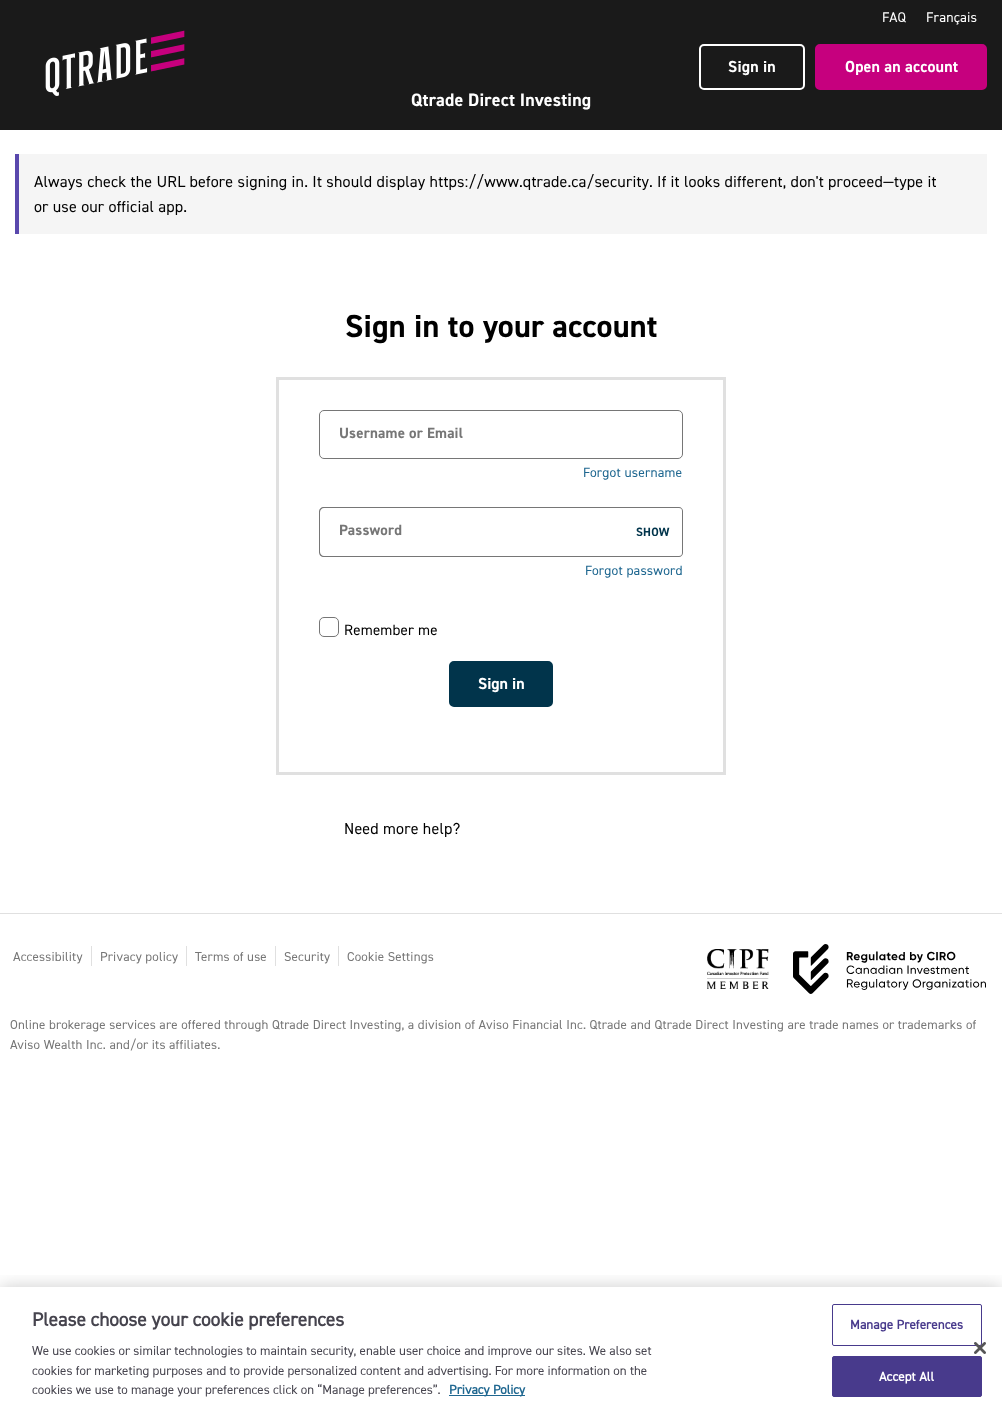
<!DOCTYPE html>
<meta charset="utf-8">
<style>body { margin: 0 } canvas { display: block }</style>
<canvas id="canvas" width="1002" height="1410"></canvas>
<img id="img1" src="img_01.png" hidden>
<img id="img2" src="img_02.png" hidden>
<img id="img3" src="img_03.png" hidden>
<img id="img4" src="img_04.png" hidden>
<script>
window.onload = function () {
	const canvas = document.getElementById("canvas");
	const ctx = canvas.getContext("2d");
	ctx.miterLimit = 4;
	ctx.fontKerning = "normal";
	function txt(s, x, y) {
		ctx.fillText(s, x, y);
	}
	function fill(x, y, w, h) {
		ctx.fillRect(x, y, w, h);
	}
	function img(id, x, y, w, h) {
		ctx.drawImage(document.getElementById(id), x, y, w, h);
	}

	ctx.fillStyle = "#FFFFFF";
	fill(0, 0, 1002, 1410);
	ctx.fillStyle = "#1A1A1A";
	fill(0, 0, 1002, 130);
	img("img1", 45, 30, 140, 66);
	ctx.beginPath();
	ctx.roundRect(700, 45, 104, 44, 4);
	ctx.strokeStyle = "#FFFFFF";
	ctx.lineWidth = 2;
	ctx.stroke();
	ctx.fillStyle = "#C6007E";
	ctx.beginPath();
	ctx.roundRect(816, 45, 170, 44, 4);
	ctx.fill();
	ctx.strokeStyle = "#C6007E";
	ctx.stroke();
	ctx.fillStyle = "#F5F5F5";
	fill(19, 154, 968, 80);
	ctx.fillStyle = "#5948AD";
	fill(15, 154, 4, 80);
	ctx.strokeStyle = "#E0E0E0";
	ctx.lineWidth = 3;
	ctx.strokeRect(277.5, 378.5, 447, 395);
	ctx.beginPath();
	ctx.roundRect(319.5, 410.5, 363, 48, 4.5);
	ctx.strokeStyle = "#767676";
	ctx.lineWidth = 1;
	ctx.stroke();
	ctx.fillStyle = "#767676";
	ctx.beginPath();
	ctx.moveTo(324, 507);
	ctx.lineTo(624, 507);
	ctx.lineTo(624, 557);
	ctx.lineTo(324, 557);
	ctx.bezierCurveTo(321, 557, 319, 555, 319, 552);
	ctx.lineTo(319, 512);
	ctx.bezierCurveTo(319, 509, 321, 507, 324, 507);
	ctx.closePath();
	ctx.moveTo(324, 508);
	ctx.lineTo(624, 508);
	ctx.lineTo(624, 556);
	ctx.lineTo(324, 556);
	ctx.bezierCurveTo(322, 556, 320, 554, 320, 552);
	ctx.lineTo(320, 512);
	ctx.bezierCurveTo(320, 510, 322, 508, 324, 508);
	ctx.closePath();
	ctx.fill("evenodd");
	ctx.beginPath();
	ctx.moveTo(624, 507);
	ctx.lineTo(679, 507);
	ctx.bezierCurveTo(681, 507, 683, 509, 683, 511);
	ctx.lineTo(683, 553);
	ctx.bezierCurveTo(683, 555, 681, 557, 679, 557);
	ctx.lineTo(624, 557);
	ctx.closePath();
	ctx.moveTo(624, 508);
	ctx.lineTo(679, 508);
	ctx.bezierCurveTo(681, 508, 682, 509, 682, 511);
	ctx.lineTo(682, 553);
	ctx.bezierCurveTo(682, 555, 681, 556, 679, 556);
	ctx.lineTo(624, 556);
	ctx.closePath();
	ctx.fill("evenodd");
	ctx.beginPath();
	ctx.roundRect(319.5, 617.5, 19, 19, 4.5);
	ctx.stroke();
	ctx.fillStyle = "#01344B";
	ctx.beginPath();
	ctx.roundRect(450, 662, 102, 44, 4);
	ctx.fill();
	ctx.strokeStyle = "#01344B";
	ctx.lineWidth = 2;
	ctx.stroke();
	ctx.fillStyle = "#E0E0E0";
	fill(0, 913, 1002, 1);
	fill(91, 946, 1, 20);
	fill(186, 946, 1, 20);
	fill(275, 946, 1, 20);
	fill(338, 946, 1, 20);
	img("img2", 707, 949, 62, 40);
	img("img3", 793, 944, 193, 50);
	ctx.save();
	ctx.beginPath();
	ctx.rect(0, 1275, 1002, 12);
	ctx.clip();
	ctx.fillStyle = "rgba(0, 0, 0, 0.2)";
	ctx.filter = "blur(9px)";
	ctx.beginPath();
	ctx.rect(0, 1287, 1002, 123);
	ctx.fill();
	ctx.filter = "none";
	ctx.restore();
	ctx.fillStyle = "#1F6790";
	fill(449, 1395, 76, 1);
	ctx.beginPath();
	ctx.roundRect(832.5, 1304.5, 149, 41, 1.5);
	ctx.strokeStyle = "#483A8C";
	ctx.lineWidth = 1;
	ctx.stroke();
	ctx.fillStyle = "#483A8C";
	ctx.beginPath();
	ctx.roundRect(832.5, 1356.5, 149, 40, 1.5);
	ctx.fill();
	ctx.stroke();
	img("img4", 974, 1342, 12, 12);
	ctx.letterSpacing = "0.18px";
	ctx.font = "14px 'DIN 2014'";
	ctx.fillStyle = "#FFFFFF";
	txt("FAQ", 882, 22);
	txt("Français", 926, 22);
	ctx.font = "bold 16px 'DIN 2014'";
	txt("Sign in", 728, 72);
	txt("Open an account", 845, 72);
	ctx.font = "bold 18px 'DIN 2014'";
	txt("Qtrade Direct Investing", 411, 106);
	ctx.font = "16px 'DIN 2014'";
	ctx.fillStyle = "#000000";
	txt("Always check the URL before signing in. It should display https://www.qtrade.ca/security. If it looks different, don't proceed—type it", 34, 187);
	txt("or use our official app.", 34, 212);
	ctx.font = "bold 32px 'DIN 2014'";
	txt("Sign in to your account", 345, 337);
	ctx.font = "bold 15px 'DIN 2014'";
	ctx.fillStyle = "#767676";
	txt("Username or Email", 339, 438);
	ctx.font = "13.5px 'DIN 2014'";
	ctx.fillStyle = "#1F6790";
	txt("Forgot username", 583, 477);
	ctx.font = "bold 15px 'DIN 2014'";
	ctx.fillStyle = "#767676";
	txt("Password", 339, 535);
	ctx.font = "bold 12px 'DIN 2014'";
	ctx.fillStyle = "#01344B";
	txt("SHOW", 636, 536);
	ctx.font = "13.5px 'DIN 2014'";
	ctx.fillStyle = "#1F6790";
	txt("Forgot password", 585, 575);
	ctx.font = "15px 'DIN 2014'";
	ctx.fillStyle = "#000000";
	txt("Remember me", 344, 635);
	ctx.letterSpacing = "0px";
	ctx.font = "bold 16px 'DIN 2014'";
	ctx.fillStyle = "#FFFFFF";
	txt("Sign in", 478, 689);
	ctx.letterSpacing = "0.18px";
	ctx.font = "16px 'DIN 2014'";
	ctx.fillStyle = "#000000";
	txt("Need more help?", 344, 834);
	ctx.font = "13px 'DIN 2014'";
	ctx.fillStyle = "#767676";
	txt("Accessibility", 13, 961);
	txt("Privacy policy", 100, 961);
	txt("Terms of use", 195, 961);
	txt("Security", 284, 961);
	txt("Cookie Settings", 347, 961);
	txt("Online brokerage services are offered through Qtrade Direct Investing, a division of Aviso Financial Inc. Qtrade and Qtrade Direct Investing are trade names or trademarks of", 10, 1029);
	txt("Aviso Wealth Inc. and/or its affiliates.", 10, 1049);
	ctx.letterSpacing = "0px";
	ctx.font = "bold 19.25px 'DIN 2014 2'";
	ctx.fillStyle = "#46444E";
	txt("Please choose your cookie preferences", 32, 1326);
	ctx.font = "13px 'DIN 2014'";
	txt("We use cookies or similar technologies to maintain security, enable user choice and improve our sites. We also set", 32, 1355);
	txt("cookies for marketing purposes and to provide personalized content and advertising. For more information on the", 32, 1375);
	txt("cookies we use to manage your preferences click on “Manage preferences”.", 32, 1394);
	ctx.font = "bold 13px 'DIN 2014 2'";
	ctx.fillStyle = "#1F6790";
	txt("Privacy Policy", 449, 1394);
	ctx.letterSpacing = "0.1px";
	ctx.fillStyle = "#483A8C";
	txt("Manage Preferences", 850, 1329);
	ctx.fillStyle = "#FFFFFF";
	txt("Accept All", 879, 1381);
};
</script>
